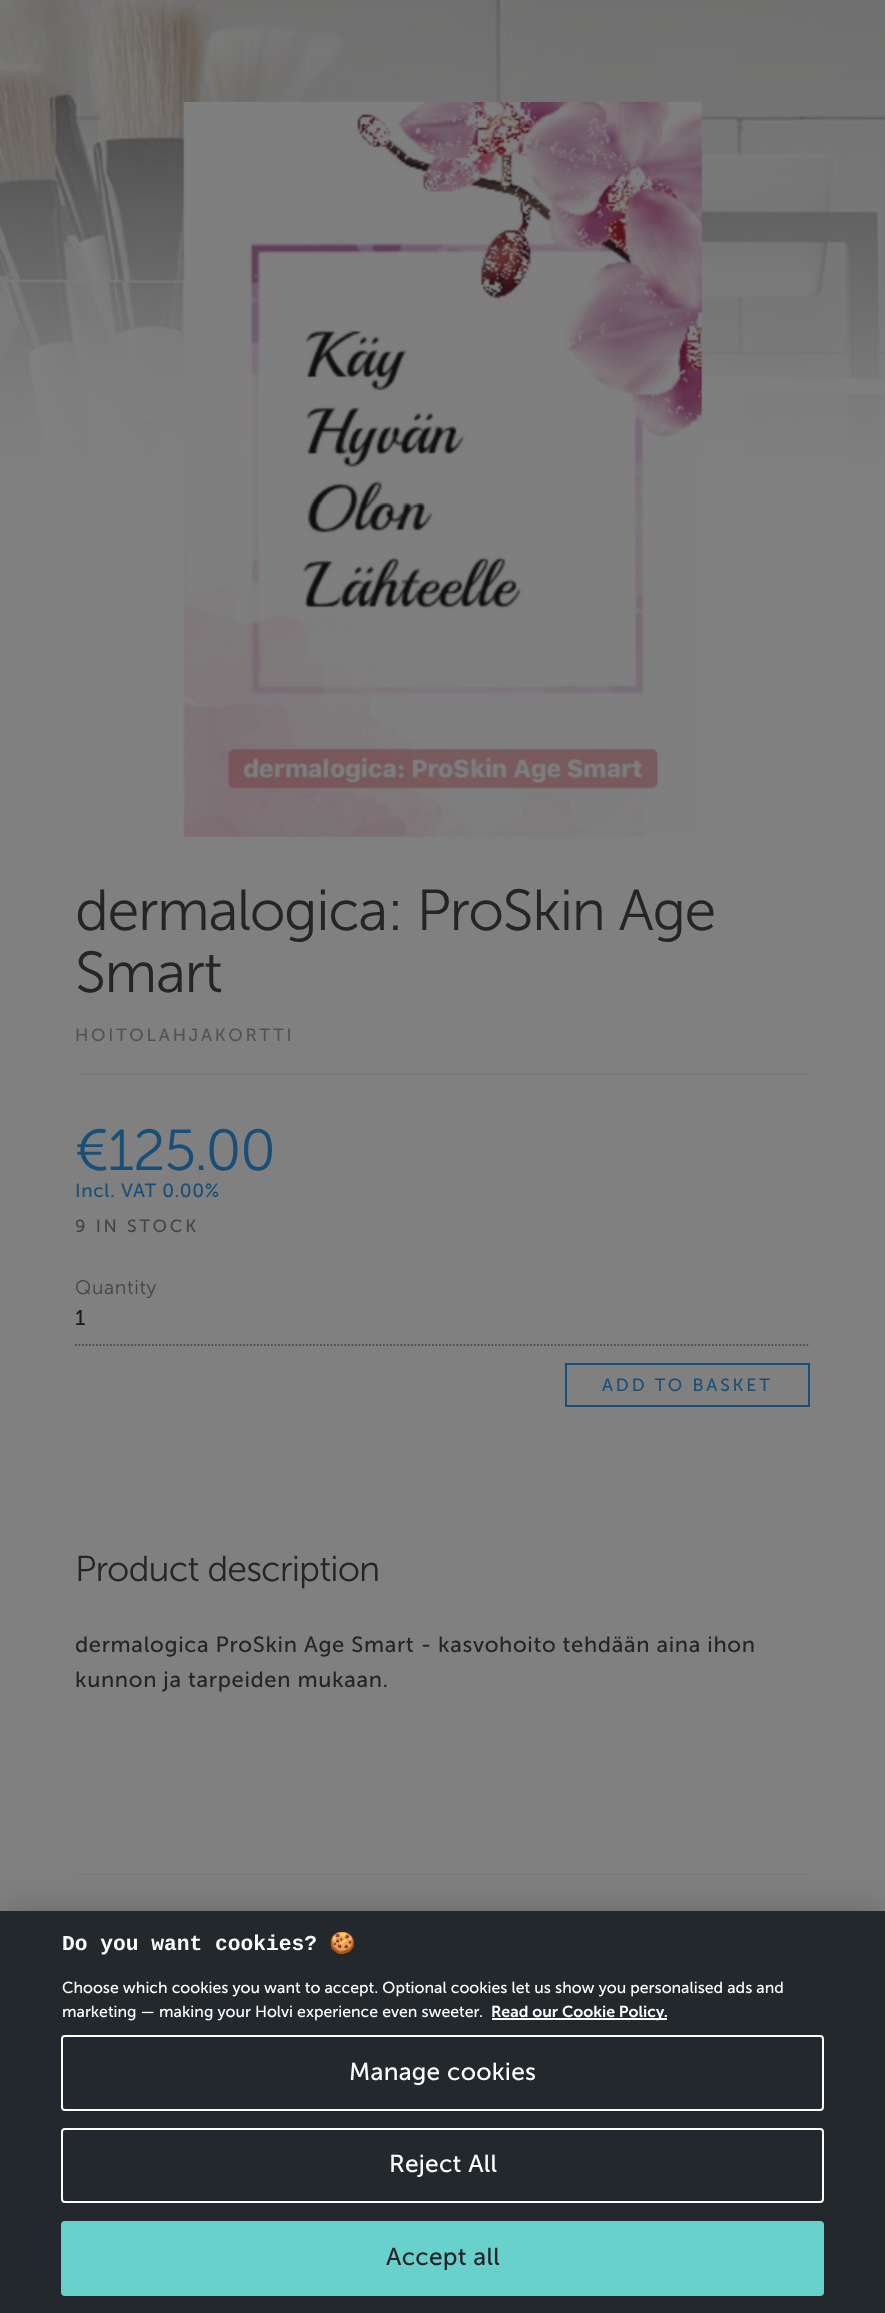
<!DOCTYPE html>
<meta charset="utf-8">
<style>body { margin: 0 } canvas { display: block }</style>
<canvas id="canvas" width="885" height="2313"></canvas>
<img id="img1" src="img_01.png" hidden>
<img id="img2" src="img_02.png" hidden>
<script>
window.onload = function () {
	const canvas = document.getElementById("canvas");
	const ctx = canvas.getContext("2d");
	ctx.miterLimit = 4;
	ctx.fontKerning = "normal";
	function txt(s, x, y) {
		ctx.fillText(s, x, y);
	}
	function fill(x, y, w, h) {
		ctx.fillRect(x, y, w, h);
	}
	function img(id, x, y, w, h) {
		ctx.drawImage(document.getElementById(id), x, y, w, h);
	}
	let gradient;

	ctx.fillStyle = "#808080";
	fill(0, 0, 885, 2313);
	img("img1", 0, 0, 885, 465);
	gradient = ctx.createLinearGradient(443, -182, 443, 473);
	gradient.addColorStop(0, "rgba(128, 128, 128, 0)");
	gradient.addColorStop(0.4, "rgba(128, 128, 128, 0.5)");
	gradient.addColorStop(0.58, "rgba(128, 128, 128, 0.7)");
	gradient.addColorStop(0.8, "rgba(128, 128, 128, 0.88)");
	gradient.addColorStop(0.89, "rgba(128, 128, 128, 0.95)");
	gradient.addColorStop(1, "#808080");
	ctx.fillStyle = gradient;
	fill(0, 0, 885, 465);
	img("img2", 183, 102, 520, 735);
	ctx.fillStyle = "#7C7C7C";
	fill(75, 1073, 735, 2);
	ctx.beginPath();
	ctx.moveTo(75, 1345);
	ctx.lineTo(810, 1345);
	ctx.strokeStyle = "#515255";
	ctx.lineWidth = 1.8;
	ctx.setLineDash([1.75, 1.75]);
	ctx.stroke();
	ctx.strokeStyle = "#194F76";
	ctx.lineWidth = 2;
	ctx.setLineDash([]);
	ctx.strokeRect(566, 1364, 243, 42);
	fill(75, 1873, 735, 2);
	ctx.fillStyle = "rgba(0, 0, 0, 0.2)";
	ctx.filter = "blur(16px)";
	ctx.beginPath();
	ctx.rect(0, 1911, 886, 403);
	ctx.fill();
	ctx.filter = "none";
	ctx.fillStyle = "#23282D";
	fill(0, 1911, 885, 402);
	ctx.fillStyle = "#FFFFFF";
	fill(492, 2018, 175, 2);
	ctx.beginPath();
	ctx.roundRect(62, 2036, 761, 74, 3);
	ctx.strokeStyle = "#FFFFFF";
	ctx.stroke();
	ctx.beginPath();
	ctx.roundRect(62, 2129, 761, 73, 3);
	ctx.stroke();
	ctx.fillStyle = "#69D1CC";
	ctx.beginPath();
	ctx.roundRect(62, 2222, 761, 73, 3);
	ctx.fill();
	ctx.strokeStyle = "#69D1CC";
	ctx.stroke();
	ctx.letterSpacing = "-1.4px";
	ctx.font = "300 57.6px Museo Sans";
	ctx.fillStyle = "#252528";
	txt("dermalogica: ProSkin Age", 75, 930);
	txt("Smart", 75, 992);
	ctx.letterSpacing = "2.8px";
	ctx.font = "17.6px Museo Sans";
	ctx.fillStyle = "#515255";
	txt("HOITOLAHJAKORTTI", 75, 1041);
	ctx.letterSpacing = "-1.4px";
	ctx.font = "300 57.6px Museo Sans";
	ctx.fillStyle = "#194F76";
	txt("€125.00", 75, 1170);
	ctx.letterSpacing = "0.65px";
	ctx.font = "19px Museo Sans";
	txt("Incl. VAT 0.00%", 75, 1197);
	ctx.letterSpacing = "2.8px";
	ctx.font = "17.6px Museo Sans";
	ctx.fillStyle = "#444449";
	txt("9 IN STOCK", 75, 1232);
	ctx.letterSpacing = "0.65px";
	ctx.font = "300 19.5px Museo Sans";
	txt("Quantity", 75, 1294);
	ctx.font = "21.25px Museo Sans";
	ctx.fillStyle = "#1A1A1A";
	txt("1", 75, 1325);
	ctx.letterSpacing = "2.8px";
	ctx.font = "17.6px Museo Sans";
	ctx.fillStyle = "#194F76";
	txt("ADD TO BASKET", 602, 1391);
	ctx.letterSpacing = "-0.9px";
	ctx.font = "300 35.75px Museo Sans";
	ctx.fillStyle = "#252528";
	txt("Product description", 75, 1581);
	ctx.letterSpacing = "0.65px";
	ctx.font = "22px Museo Sans";
	txt("dermalogica ProSkin Age Smart - kasvohoito tehdään aina ihon", 75, 1652);
	txt("kunnon ja tarpeiden mukaan.", 75, 1687);
	ctx.letterSpacing = "0px";
	ctx.font = "bold 21.25px Liberation Mono";
	ctx.fillStyle = "#FFFFFF";
	txt("Do you want cookies?", 62, 1950);
	ctx.save();
	ctx.beginPath();
	ctx.rect(61, 1932, 723, 93);
	ctx.clip();
	ctx.font = "bold 21.25px Noto Color Emoji";
	txt("🍪", 329, 1950);
	ctx.restore();
	ctx.font = "15.9px Museo Sans";
	txt("Choose which cookies you want to accept. Optional cookies let us show you personalised ads and", 62, 1993);
	txt("marketing — making your Holvi experience even sweeter.", 62, 2017);
	ctx.font = "600 15.9px Museo Sans";
	txt("Read our Cookie Policy.", 491, 2017);
	ctx.letterSpacing = "0.25px";
	ctx.font = "24.5px Museo Sans";
	txt("Manage cookies", 349, 2080);
	txt("Reject All", 389, 2172);
	ctx.fillStyle = "#252528";
	txt("Accept all", 386, 2265);
};
</script>
